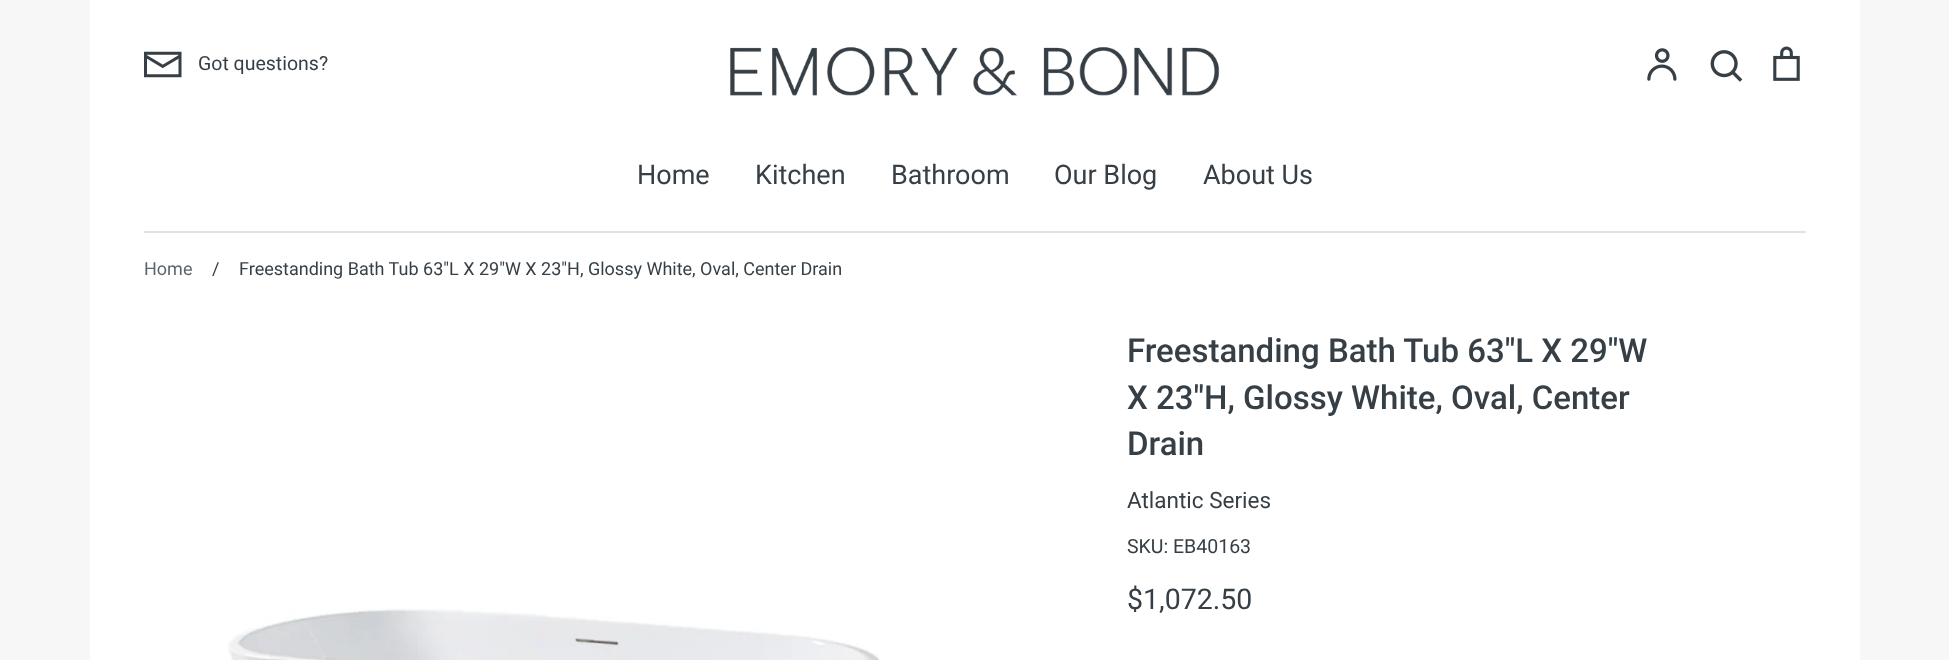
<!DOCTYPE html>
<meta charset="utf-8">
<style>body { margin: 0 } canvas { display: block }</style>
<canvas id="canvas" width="1949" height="660"></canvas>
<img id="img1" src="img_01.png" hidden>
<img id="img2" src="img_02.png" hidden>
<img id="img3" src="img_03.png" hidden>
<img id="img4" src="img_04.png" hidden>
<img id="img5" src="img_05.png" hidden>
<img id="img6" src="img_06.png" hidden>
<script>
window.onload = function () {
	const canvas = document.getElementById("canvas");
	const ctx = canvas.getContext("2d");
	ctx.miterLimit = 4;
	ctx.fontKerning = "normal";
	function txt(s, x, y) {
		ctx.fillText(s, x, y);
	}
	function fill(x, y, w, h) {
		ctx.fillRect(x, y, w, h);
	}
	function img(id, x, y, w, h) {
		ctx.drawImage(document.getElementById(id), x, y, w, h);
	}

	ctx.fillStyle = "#F7F7F7";
	fill(0, 0, 1949, 660);
	ctx.fillStyle = "#FFFFFF";
	fill(90, 0, 1770, 660);
	img("img1", 144, 51, 38, 27);
	img("img2", 730, 47, 490, 49);
	img("img3", 1647, 48, 30, 33);
	img("img4", 1710, 50, 33, 32);
	img("img5", 1773, 46, 27, 35);
	ctx.fillStyle = "#E1E2E3";
	fill(144, 231, 1662, 2);
	img("img6", 228, 608, 652, 52);
	ctx.font = "19.5px Roboto";
	ctx.fillStyle = "#363F45";
	txt("Got questions?", 198, 70);
	ctx.font = "27px Roboto";
	txt("Home", 637, 184);
	txt("Kitchen", 755, 184);
	txt("Bathroom", 891, 184);
	txt("Our Blog", 1054, 184);
	txt("About Us", 1203, 184);
	ctx.font = "18px Roboto";
	ctx.fillStyle = "#5E656A";
	txt("Home", 144, 275);
	ctx.fillStyle = "#363F45";
	txt("/", 212, 275);
	txt("Freestanding Bath Tub 63\"L X 29\"W X 23\"H, Glossy White, Oval, Center Drain", 239, 275);
	ctx.font = "500 33px Roboto";
	txt("Freestanding Bath Tub 63\"L X 29\"W", 1127, 362);
	txt("X 23\"H, Glossy White, Oval, Center", 1127, 409);
	txt("Drain", 1127, 455);
	ctx.font = "22.5px Roboto";
	txt("Atlantic Series", 1127, 508);
	ctx.font = "19.5px Roboto";
	txt("SKU: EB40163", 1127, 553);
	ctx.font = "28.5px Roboto";
	txt("$1,072.50", 1127, 609);
};
</script>
